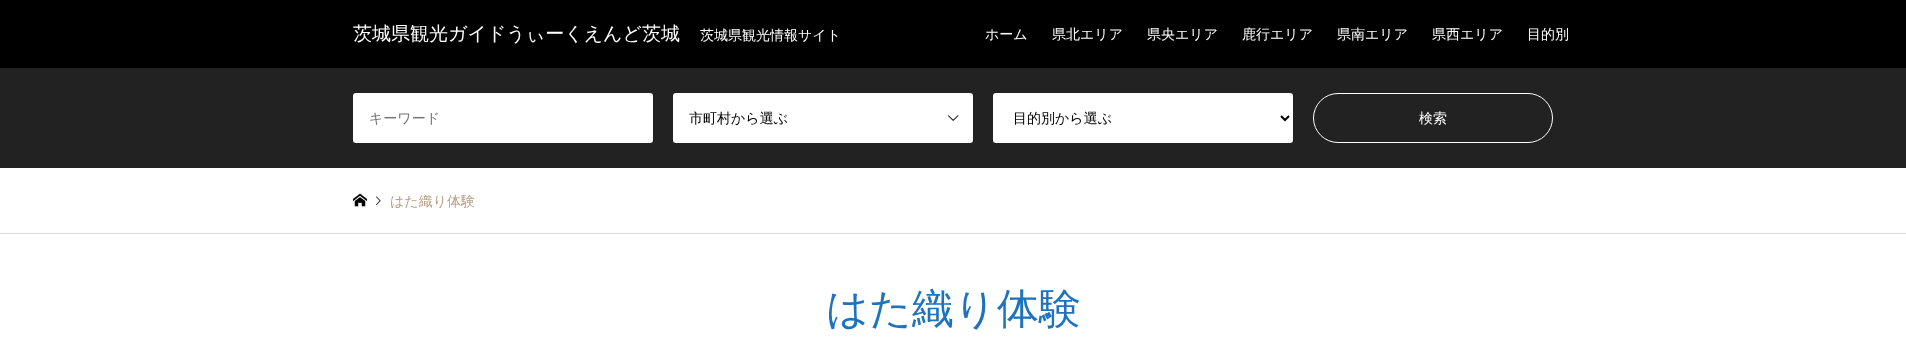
<!DOCTYPE html>
<meta charset="utf-8">
<style>body { margin: 0 } canvas { display: block }</style>
<canvas id="canvas" width="1906" height="352"></canvas>
<img id="img1" src="img_01.png" hidden>
<img id="img2" src="img_02.png" hidden>
<img id="img3" src="img_03.png" hidden>
<script>
window.onload = function () {
	const canvas = document.getElementById("canvas");
	const ctx = canvas.getContext("2d");
	ctx.miterLimit = 4;
	ctx.fontKerning = "normal";
	function txt(s, x, y) {
		ctx.fillText(s, x, y);
	}
	function fill(x, y, w, h) {
		ctx.fillRect(x, y, w, h);
	}
	function round(x, y, w, h, r) {
		ctx.beginPath();
		ctx.roundRect(x, y, w, h, r);
		ctx.fill();
	}
	function img(id, x, y, w, h) {
		ctx.drawImage(document.getElementById(id), x, y, w, h);
	}

	ctx.fillStyle = "#FFFFFF";
	fill(0, 0, 1906, 352);
	ctx.fillStyle = "#000000";
	fill(0, 0, 1906, 68);
	ctx.fillStyle = "#222222";
	fill(0, 68, 1906, 100);
	ctx.fillStyle = "#FFFFFF";
	round(353, 93, 300, 50, 3);
	round(673, 93, 300, 50, 3);
	img("img1", 947, 115, 12, 6);
	round(993, 93, 300, 50, 3);
	ctx.beginPath();
	ctx.moveTo(1281, 116);
	ctx.lineTo(1285, 120);
	ctx.lineTo(1289, 116);
	ctx.strokeStyle = "#000000";
	ctx.lineWidth = 2;
	ctx.stroke();
	ctx.beginPath();
	ctx.roundRect(1313.5, 93.5, 239, 49, 24.5);
	ctx.strokeStyle = "#FFFFFF";
	ctx.lineWidth = 1;
	ctx.stroke();
	ctx.fillStyle = "#DDDDDD";
	fill(0, 233, 1906, 1);
	img("img2", 353, 193, 14, 14);
	img("img3", 376, 196, 5, 9);
	ctx.font = "500 19px WenQuanYi Zen Hei";
	ctx.fillStyle = "#FFFFFF";
	txt("茨城県観光ガイドうぃーくえんど茨城", 353, 40);
	ctx.font = "500 14px WenQuanYi Zen Hei";
	txt("茨城県観光情報サイト", 700, 40);
	txt("ホーム", 985, 39);
	txt("県北エリア", 1052, 39);
	txt("県央エリア", 1147, 39);
	txt("鹿行エリア", 1242, 39);
	txt("県南エリア", 1337, 39);
	txt("県西エリア", 1432, 39);
	txt("目的別", 1527, 39);
	ctx.fillStyle = "#757575";
	txt("キーワード", 369, 123);
	ctx.fillStyle = "#000000";
	txt("市町村から選ぶ", 689, 123);
	txt("目的別から選ぶ", 1013, 123);
	ctx.fillStyle = "#FFFFFF";
	txt("検索", 1419, 123);
	ctx.fillStyle = "#B69E84";
	txt("はた織り体験", 390, 206);
	ctx.font = "500 42px WenQuanYi Zen Hei";
	ctx.fillStyle = "#1E73BE";
	txt("はた織り体験", 826, 323);
};
</script>
